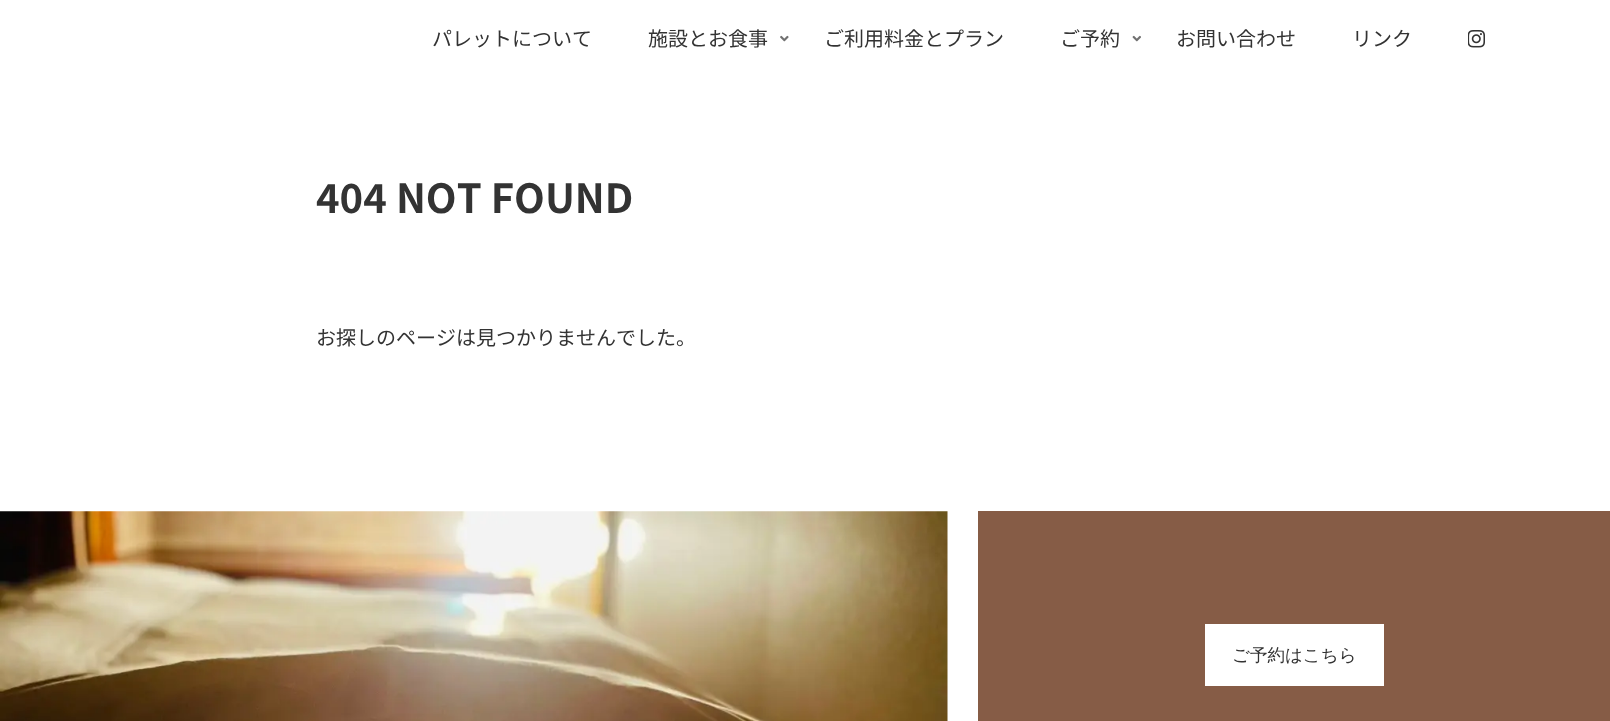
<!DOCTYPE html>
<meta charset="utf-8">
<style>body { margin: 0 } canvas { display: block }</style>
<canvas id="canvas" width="1610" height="721"></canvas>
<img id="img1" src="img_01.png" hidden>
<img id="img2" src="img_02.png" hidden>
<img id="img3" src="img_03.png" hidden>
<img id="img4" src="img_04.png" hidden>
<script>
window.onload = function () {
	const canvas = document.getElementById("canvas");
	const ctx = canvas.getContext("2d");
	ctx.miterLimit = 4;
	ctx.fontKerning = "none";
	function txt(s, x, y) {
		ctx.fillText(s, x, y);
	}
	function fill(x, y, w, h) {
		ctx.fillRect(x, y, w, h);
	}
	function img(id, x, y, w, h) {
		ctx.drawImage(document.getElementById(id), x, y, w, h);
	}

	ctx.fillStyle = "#FFFFFF";
	fill(0, 0, 1610, 721);
	img("img1", 780, 35, 9, 7);
	img("img2", 1132, 35, 9, 7);
	img("img3", 1468, 30, 17, 18);
	img("img4", 0, 511, 948, 210);
	ctx.fillStyle = "#865C46";
	fill(978, 511, 632, 210);
	ctx.fillStyle = "#FFFFFF";
	fill(1205, 624, 179, 62);
	ctx.font = "20px Noto Sans JP";
	ctx.fillStyle = "#333333";
	txt("パレットについて", 432, 46);
	txt("施設とお食事", 648, 46);
	txt("ご利用料金とプラン", 824, 46);
	txt("ご予約", 1060, 46);
	txt("お問い合わせ", 1176, 46);
	txt("リンク", 1352, 46);
	ctx.font = "bold 40px Noto Sans JP";
	txt("404 NOT FOUND", 316, 213);
	ctx.font = "20px Noto Sans JP";
	txt("お探しのページは見つかりませんでした。", 316, 345);
	ctx.font = "500 17.5px WenQuanYi Zen Hei";
	txt("ご予約はこちら", 1232, 661);
};
</script>
